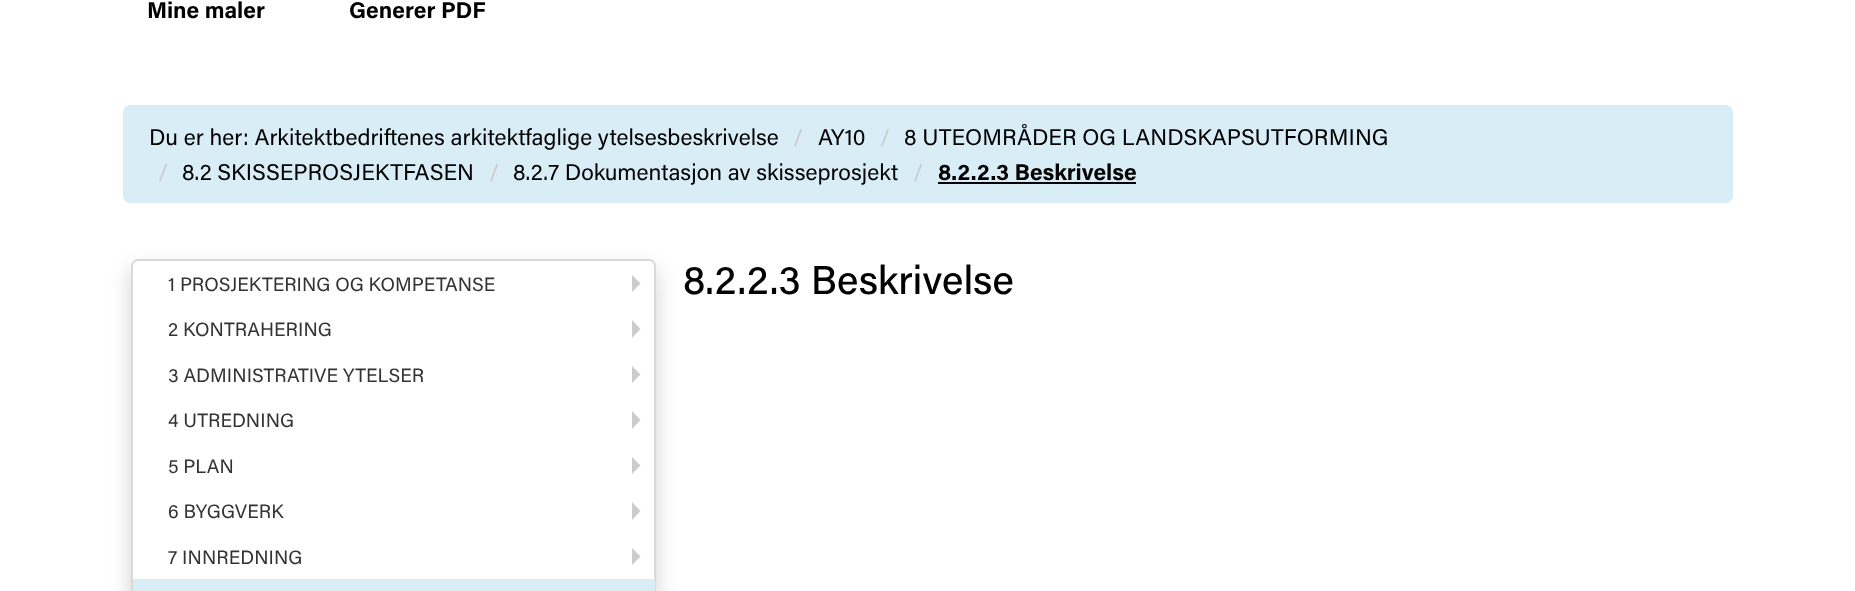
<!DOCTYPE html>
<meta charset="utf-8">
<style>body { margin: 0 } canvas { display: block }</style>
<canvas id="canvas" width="1855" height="591"></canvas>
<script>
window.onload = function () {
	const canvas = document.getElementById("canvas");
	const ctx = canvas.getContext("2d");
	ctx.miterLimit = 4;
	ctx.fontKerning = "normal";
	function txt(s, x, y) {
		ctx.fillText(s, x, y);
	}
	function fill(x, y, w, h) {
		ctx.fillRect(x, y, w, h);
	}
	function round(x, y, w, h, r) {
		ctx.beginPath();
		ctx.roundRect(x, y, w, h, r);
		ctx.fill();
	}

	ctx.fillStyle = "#FFFFFF";
	fill(0, 0, 1855, 591);
	ctx.fillStyle = "#D9EDF7";
	round(123, 105, 1610, 98, 7);
	ctx.fillStyle = "#000000";
	fill(938, 182, 198, 2);
	ctx.save();
	ctx.beginPath();
	ctx.moveTo(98, 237);
	ctx.lineTo(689, 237);
	ctx.lineTo(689, 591);
	ctx.lineTo(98, 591);
	ctx.closePath();
	ctx.moveTo(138, 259);
	ctx.lineTo(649, 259);
	ctx.bezierCurveTo(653, 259, 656, 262, 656, 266);
	ctx.lineTo(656, 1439);
	ctx.bezierCurveTo(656, 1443, 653, 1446, 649, 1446);
	ctx.lineTo(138, 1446);
	ctx.bezierCurveTo(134, 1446, 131, 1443, 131, 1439);
	ctx.lineTo(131, 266);
	ctx.bezierCurveTo(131, 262, 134, 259, 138, 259);
	ctx.closePath();
	ctx.clip("evenodd");
	ctx.fillStyle = "rgba(0, 0, 0, 0.18)";
	ctx.filter = "blur(10.5px)";
	ctx.beginPath();
	ctx.roundRect(131, 270, 525, 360, 7);
	ctx.fill();
	ctx.filter = "none";
	ctx.restore();
	ctx.beginPath();
	ctx.roundRect(132, 260, 523, 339, 6);
	ctx.strokeStyle = "rgba(0, 0, 0, 0.15)";
	ctx.lineWidth = 2;
	ctx.stroke();
	ctx.fillStyle = "#CCCCCC";
	ctx.beginPath();
	ctx.moveTo(632, 292);
	ctx.lineTo(632, 275);
	ctx.lineTo(640.5, 283.5);
	ctx.closePath();
	ctx.fill();
	ctx.beginPath();
	ctx.moveTo(632, 338);
	ctx.lineTo(632, 320);
	ctx.lineTo(640.5, 329);
	ctx.closePath();
	ctx.fill();
	ctx.beginPath();
	ctx.moveTo(632, 383);
	ctx.lineTo(632, 366);
	ctx.lineTo(640.5, 374.5);
	ctx.closePath();
	ctx.fill();
	ctx.beginPath();
	ctx.moveTo(632, 429);
	ctx.lineTo(632, 411);
	ctx.lineTo(640.5, 420);
	ctx.closePath();
	ctx.fill();
	ctx.beginPath();
	ctx.moveTo(632, 474);
	ctx.lineTo(632, 457);
	ctx.lineTo(640.5, 465.5);
	ctx.closePath();
	ctx.fill();
	ctx.beginPath();
	ctx.moveTo(632, 520);
	ctx.lineTo(632, 502);
	ctx.lineTo(640.5, 511);
	ctx.closePath();
	ctx.fill();
	ctx.beginPath();
	ctx.moveTo(632, 565);
	ctx.lineTo(632, 548);
	ctx.lineTo(640.5, 556.5);
	ctx.closePath();
	ctx.fill();
	ctx.fillStyle = "#D9EDF7";
	fill(133, 579, 522, 12);
	ctx.font = "bold 22.75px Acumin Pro";
	ctx.fillStyle = "#000000";
	txt("Mine maler", 147, 18);
	txt("Generer PDF", 349, 18);
	ctx.font = "22.75px Acumin Pro";
	txt("Du er her: Arkitektbedriftenes arkitektfaglige ytelsesbeskrivelse", 149, 145);
	ctx.fillStyle = "#CCCCCC";
	txt("/", 793, 145);
	ctx.fillStyle = "#000000";
	txt("AY10", 818, 145);
	ctx.fillStyle = "#CCCCCC";
	txt("/", 880, 145);
	ctx.fillStyle = "#000000";
	txt("8 UTEOMRÅDER OG LANDSKAPSUTFORMING", 904, 145);
	ctx.fillStyle = "#CCCCCC";
	txt("/", 158, 180);
	ctx.fillStyle = "#000000";
	txt("8.2 SKISSEPROSJEKTFASEN", 182, 180);
	ctx.fillStyle = "#CCCCCC";
	txt("/", 489, 180);
	ctx.fillStyle = "#000000";
	txt("8.2.7 Dokumentasjon av skisseprosjekt", 513, 180);
	ctx.fillStyle = "#CCCCCC";
	txt("/", 913, 180);
	ctx.font = "bold 22.75px Acumin Pro";
	ctx.fillStyle = "#000000";
	txt("8.2.2.3 Beskrivelse", 938, 180);
	ctx.font = "19.25px Acumin Pro";
	ctx.fillStyle = "#333333";
	txt("1 PROSJEKTERING OG KOMPETANSE", 168, 291);
	txt("2 KONTRAHERING", 168, 336);
	txt("3 ADMINISTRATIVE YTELSER", 168, 382);
	txt("4 UTREDNING", 168, 427);
	txt("5 PLAN", 168, 473);
	txt("6 BYGGVERK", 168, 518);
	txt("7 INNREDNING", 168, 564);
	ctx.font = "500 40.25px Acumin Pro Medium";
	ctx.fillStyle = "#000000";
	txt("8.2.2.3 Beskrivelse", 683, 294);
};
</script>
